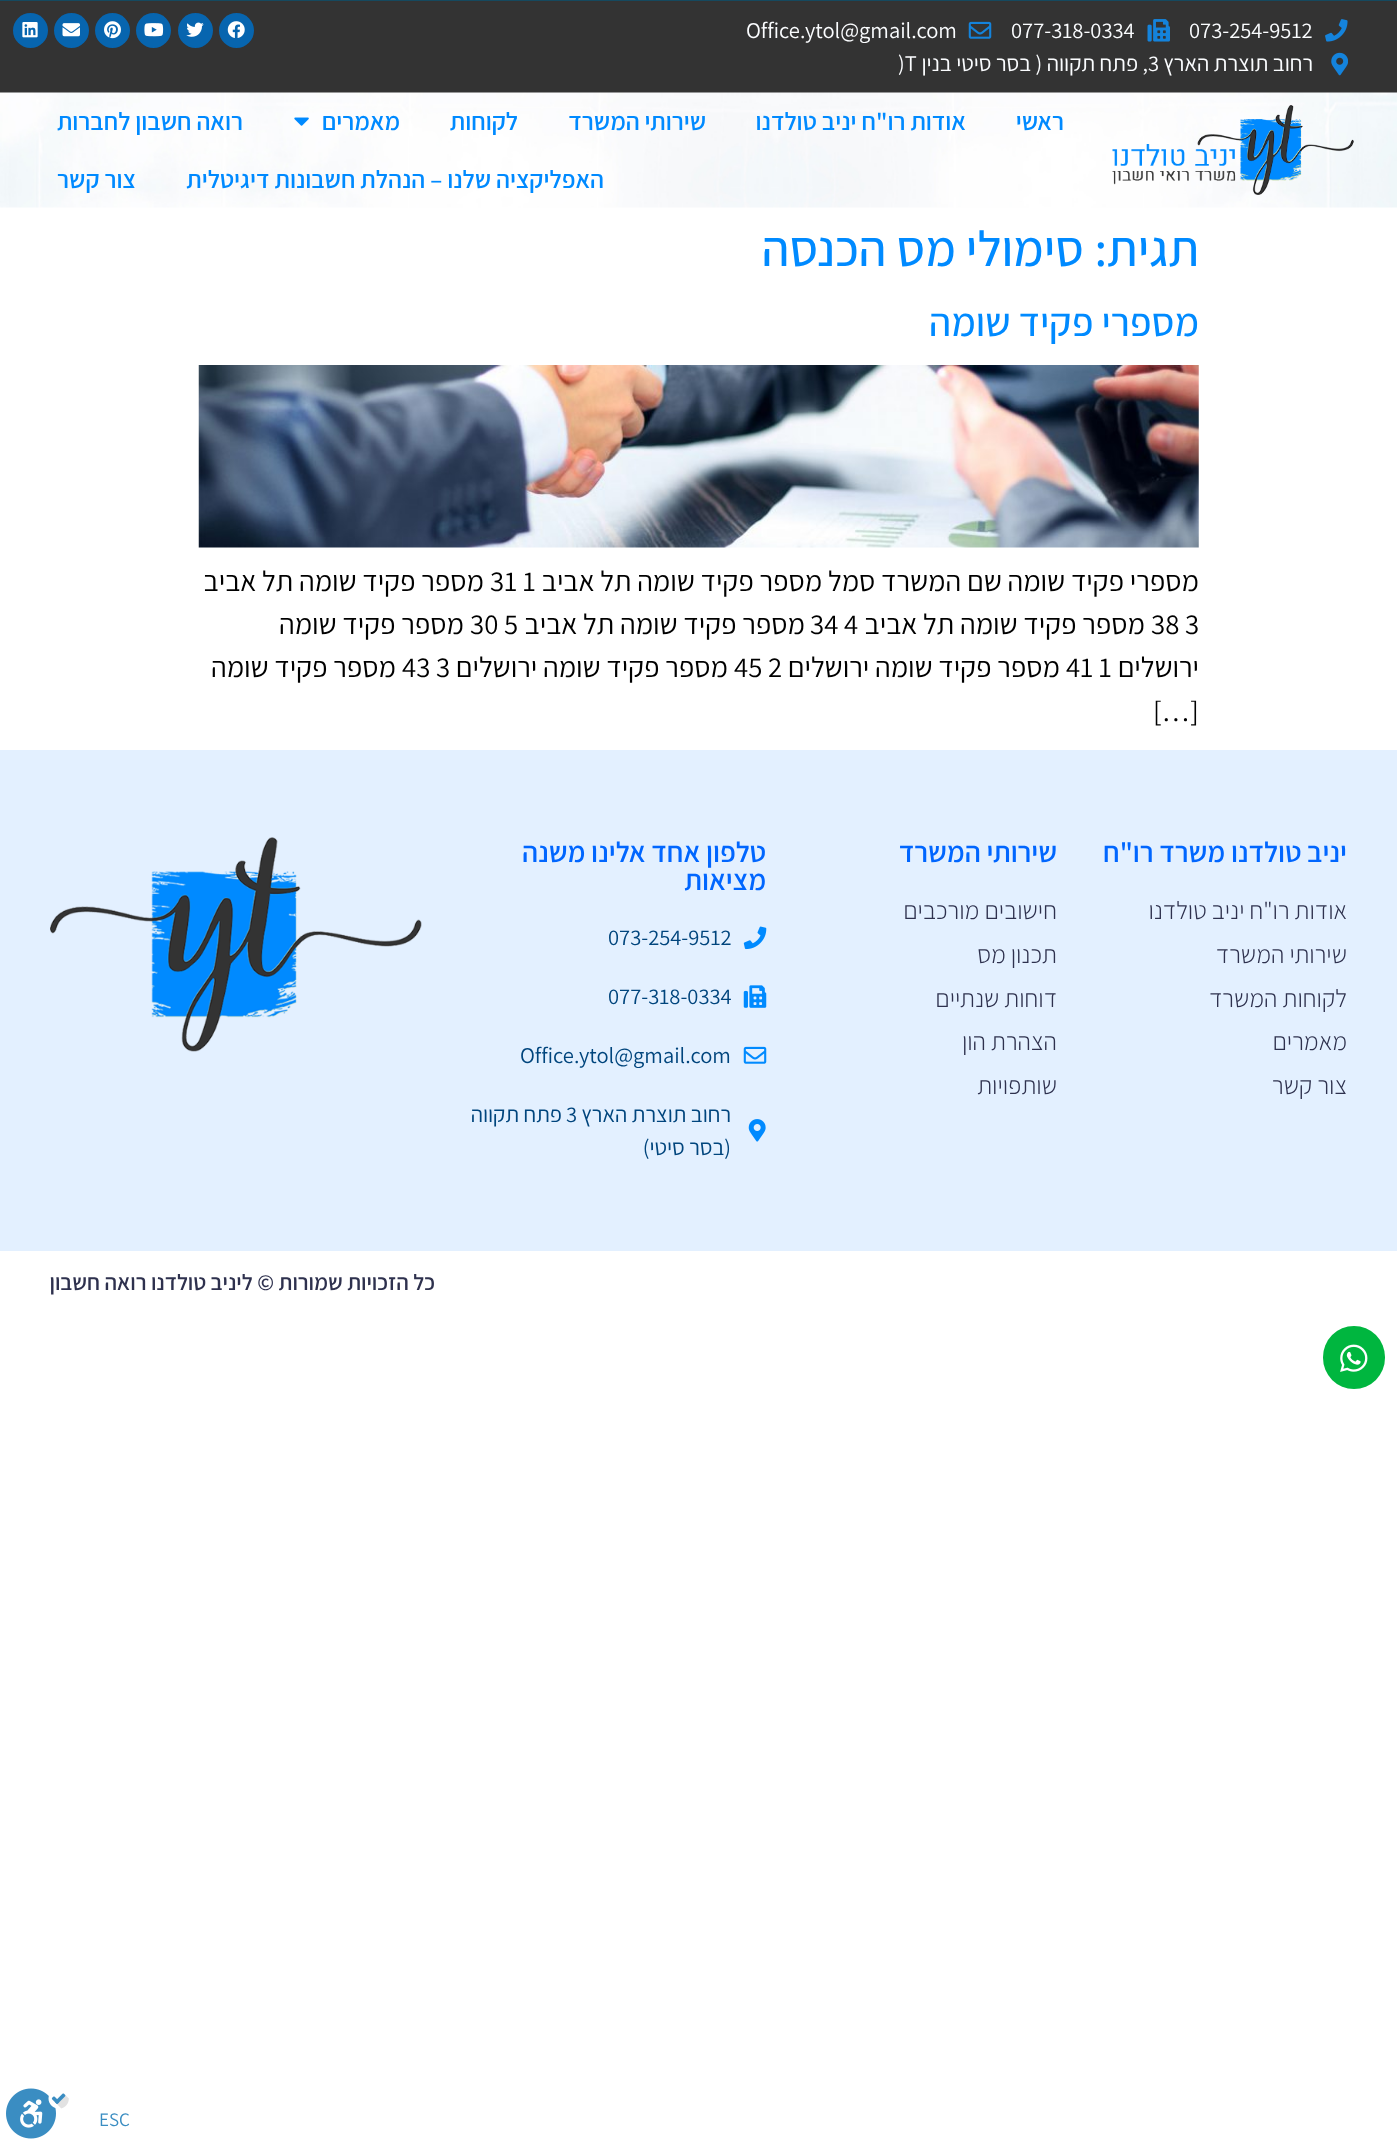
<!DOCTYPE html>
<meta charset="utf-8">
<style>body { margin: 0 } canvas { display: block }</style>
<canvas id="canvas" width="1397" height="2147"></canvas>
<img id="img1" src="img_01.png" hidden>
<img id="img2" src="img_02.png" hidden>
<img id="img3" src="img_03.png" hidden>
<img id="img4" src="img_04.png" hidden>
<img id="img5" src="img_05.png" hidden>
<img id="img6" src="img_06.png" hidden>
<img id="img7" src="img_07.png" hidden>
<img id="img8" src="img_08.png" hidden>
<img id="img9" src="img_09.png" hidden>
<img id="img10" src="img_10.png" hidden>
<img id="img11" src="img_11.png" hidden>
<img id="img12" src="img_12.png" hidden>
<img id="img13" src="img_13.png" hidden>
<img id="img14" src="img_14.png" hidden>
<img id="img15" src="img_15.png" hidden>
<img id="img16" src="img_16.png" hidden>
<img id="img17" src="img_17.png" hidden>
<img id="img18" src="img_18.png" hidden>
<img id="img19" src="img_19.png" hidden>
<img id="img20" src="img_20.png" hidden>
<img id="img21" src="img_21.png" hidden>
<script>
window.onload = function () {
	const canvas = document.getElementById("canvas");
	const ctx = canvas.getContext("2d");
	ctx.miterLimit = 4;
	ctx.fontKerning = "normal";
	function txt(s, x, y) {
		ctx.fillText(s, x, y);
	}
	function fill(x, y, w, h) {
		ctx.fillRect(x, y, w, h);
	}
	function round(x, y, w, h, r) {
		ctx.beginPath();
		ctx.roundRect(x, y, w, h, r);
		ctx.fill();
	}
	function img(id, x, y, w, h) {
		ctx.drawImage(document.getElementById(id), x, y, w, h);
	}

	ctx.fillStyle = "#FFFFFF";
	fill(0, 0, 1397, 2147);
	ctx.fillStyle = "#333333";
	fill(0, 1, 1397, 92);
	img("img1", 1325, 19, 23, 23);
	img("img2", 1147, 19, 23, 23);
	img("img3", 968, 21, 24, 18);
	img("img4", 1331, 52, 17, 24);
	ctx.fillStyle = "#0765AF";
	ctx.beginPath();
	ctx.arc(236.5, 30.5, 17.5, 0, Math.PI * 2);
	ctx.fill();
	img("img5", 227, 21, 18, 17);
	ctx.beginPath();
	ctx.arc(195.5, 30.5, 17.5, 0, Math.PI * 2);
	ctx.fill();
	img("img6", 186, 22, 18, 15);
	ctx.beginPath();
	ctx.arc(153.5, 30.5, 17.5, 0, Math.PI * 2);
	ctx.fill();
	img("img7", 144, 23, 20, 14);
	ctx.beginPath();
	ctx.arc(112.5, 30.5, 17.5, 0, Math.PI * 2);
	ctx.fill();
	img("img8", 104, 21, 17, 18);
	ctx.beginPath();
	ctx.arc(71.5, 30.5, 17.5, 0, Math.PI * 2);
	ctx.fill();
	img("img9", 62, 23, 18, 14);
	ctx.beginPath();
	ctx.arc(30.5, 30.5, 17.5, 0, Math.PI * 2);
	ctx.fill();
	img("img10", 22, 22, 16, 16);
	img("img11", 0, 92, 1397, 116);
	img("img12", 1112, 105, 242, 90);
	img("img13", 294, 117, 15, 9);
	img("img14", 198, 365, 1001, 183);
	ctx.fillStyle = "#E3F0FF";
	fill(0, 750, 1397, 501);
	img("img15", 743, 926, 24, 24);
	img("img16", 743, 985, 24, 23);
	img("img17", 743, 1046, 24, 18);
	img("img18", 748, 1119, 18, 23);
	img("img19", 50, 837, 372, 215);
	ctx.fillStyle = "#00B63F";
	round(1323, 1326, 62, 63, 31);
	img("img20", 1340, 1344, 28, 28);
	ctx.fillStyle = "#15495F";
	fill(0, 0, 1397, 1);
	img("img21", 6, 2088, 63, 51);
	ctx.font = "22.5px Assistant";
	ctx.fillStyle = "#FBFDFF";
	txt("073-254-9512", 1189, 38);
	txt("077-318-0334", 1011, 38);
	txt("Office.ytol@gmail.com", 746, 38);
	ctx.direction = "rtl";
	txt("רחוב תוצרת הארץ", 1313, 71);
	ctx.direction = "ltr";
	txt("3", 1148, 71);
	ctx.direction = "rtl";
	txt(", פתח תקווה ( בסר סיטי בנין", 1148, 71);
	ctx.direction = "ltr";
	txt(")T", 898, 71);
	ctx.direction = "rtl";
	ctx.font = "600 25px Assistant";
	ctx.fillStyle = "#008AFF";
	txt("ראשי", 1064, 130);
	txt("אודות רו\"ח יניב טולדנו", 966, 130);
	txt("שירותי המשרד", 706, 130);
	txt("לקוחות", 518, 130);
	txt("מאמרים", 400, 130);
	txt("רואה חשבון לחברות", 243, 130);
	txt("האפליקציה שלנו – הנהלת חשבונות דיגיטלית", 604, 188);
	txt("צור קשר", 136, 188);
	ctx.font = "500 50px Assistant";
	txt("תגית:", 1199, 266);
	txt("סימולי מס הכנסה", 1084, 266);
	ctx.font = "500 40px Assistant";
	txt("מספרי פקיד שומה", 1199, 336);
	ctx.font = "28.75px Assistant";
	ctx.fillStyle = "#000000";
	txt("מספרי פקיד שומה שם המשרד סמל מספר פקיד שומה תל אביב", 1199, 591);
	ctx.direction = "ltr";
	txt("31 1", 490, 591);
	ctx.direction = "rtl";
	txt("מספר פקיד שומה תל אביב", 484, 591);
	ctx.direction = "ltr";
	txt("38 3", 1151, 634);
	ctx.direction = "rtl";
	txt("מספר פקיד שומה תל אביב", 1145, 634);
	ctx.direction = "ltr";
	txt("34 4", 810, 634);
	ctx.direction = "rtl";
	txt("מספר פקיד שומה תל אביב", 805, 634);
	ctx.direction = "ltr";
	txt("30 5", 470, 634);
	ctx.direction = "rtl";
	txt("מספר פקיד שומה", 464, 634);
	txt("ירושלים", 1199, 677);
	ctx.direction = "ltr";
	txt("41 1", 1066, 677);
	ctx.direction = "rtl";
	txt("מספר פקיד שומה ירושלים", 1060, 677);
	ctx.direction = "ltr";
	txt("45 2", 734, 677);
	ctx.direction = "rtl";
	txt("מספר פקיד שומה ירושלים", 728, 677);
	ctx.direction = "ltr";
	txt("43 3", 402, 677);
	ctx.direction = "rtl";
	txt("מספר פקיד שומה", 396, 677);
	ctx.direction = "ltr";
	txt("[…]", 1153, 721);
	ctx.direction = "rtl";
	ctx.font = "600 28.75px Assistant";
	ctx.fillStyle = "#0066FF";
	txt("יניב טולדנו משרד רו\"ח", 1347, 862);
	ctx.font = "300 25px Assistant";
	ctx.fillStyle = "#2E314E";
	txt("אודות רו\"ח יניב טולדנו", 1347, 919);
	txt("שירותי המשרד", 1347, 963);
	txt("לקוחות המשרד", 1347, 1007);
	txt("מאמרים", 1347, 1050);
	txt("צור קשר", 1347, 1094);
	ctx.font = "600 28.75px Assistant";
	ctx.fillStyle = "#0066FF";
	txt("שירותי המשרד", 1057, 862);
	ctx.font = "300 25px Assistant";
	ctx.fillStyle = "#2E314E";
	txt("חישובים מורכבים", 1057, 919);
	txt("תכנון מס", 1057, 963);
	txt("דוחות שנתיים", 1057, 1007);
	txt("הצהרת הון", 1057, 1050);
	txt("שותפויות", 1057, 1094);
	ctx.font = "600 28.75px Assistant";
	ctx.fillStyle = "#0066FF";
	txt("טלפון אחד אלינו משנה", 766, 862);
	txt("מציאות", 766, 890);
	ctx.direction = "ltr";
	ctx.font = "22.5px Assistant";
	ctx.fillStyle = "#00457D";
	txt("073-254-9512", 608, 945);
	txt("077-318-0334", 608, 1004);
	txt("Office.ytol@gmail.com", 520, 1063);
	ctx.direction = "rtl";
	txt("רחוב תוצרת הארץ", 731, 1122);
	ctx.direction = "ltr";
	txt("3", 566, 1122);
	ctx.direction = "rtl";
	txt("פתח תקווה", 562, 1122);
	txt("(בסר סיטי)", 731, 1155);
	ctx.font = "600 22.5px Assistant";
	ctx.fillStyle = "#2E314E";
	txt("כל הזכויות שמורות © ליניב טולדנו רואה חשבון", 435, 1290);
	ctx.direction = "ltr";
	ctx.font = "19px Assistant";
	ctx.fillStyle = "#3A8DC2";
	txt("ESC", 99, 2126);
};
</script>
